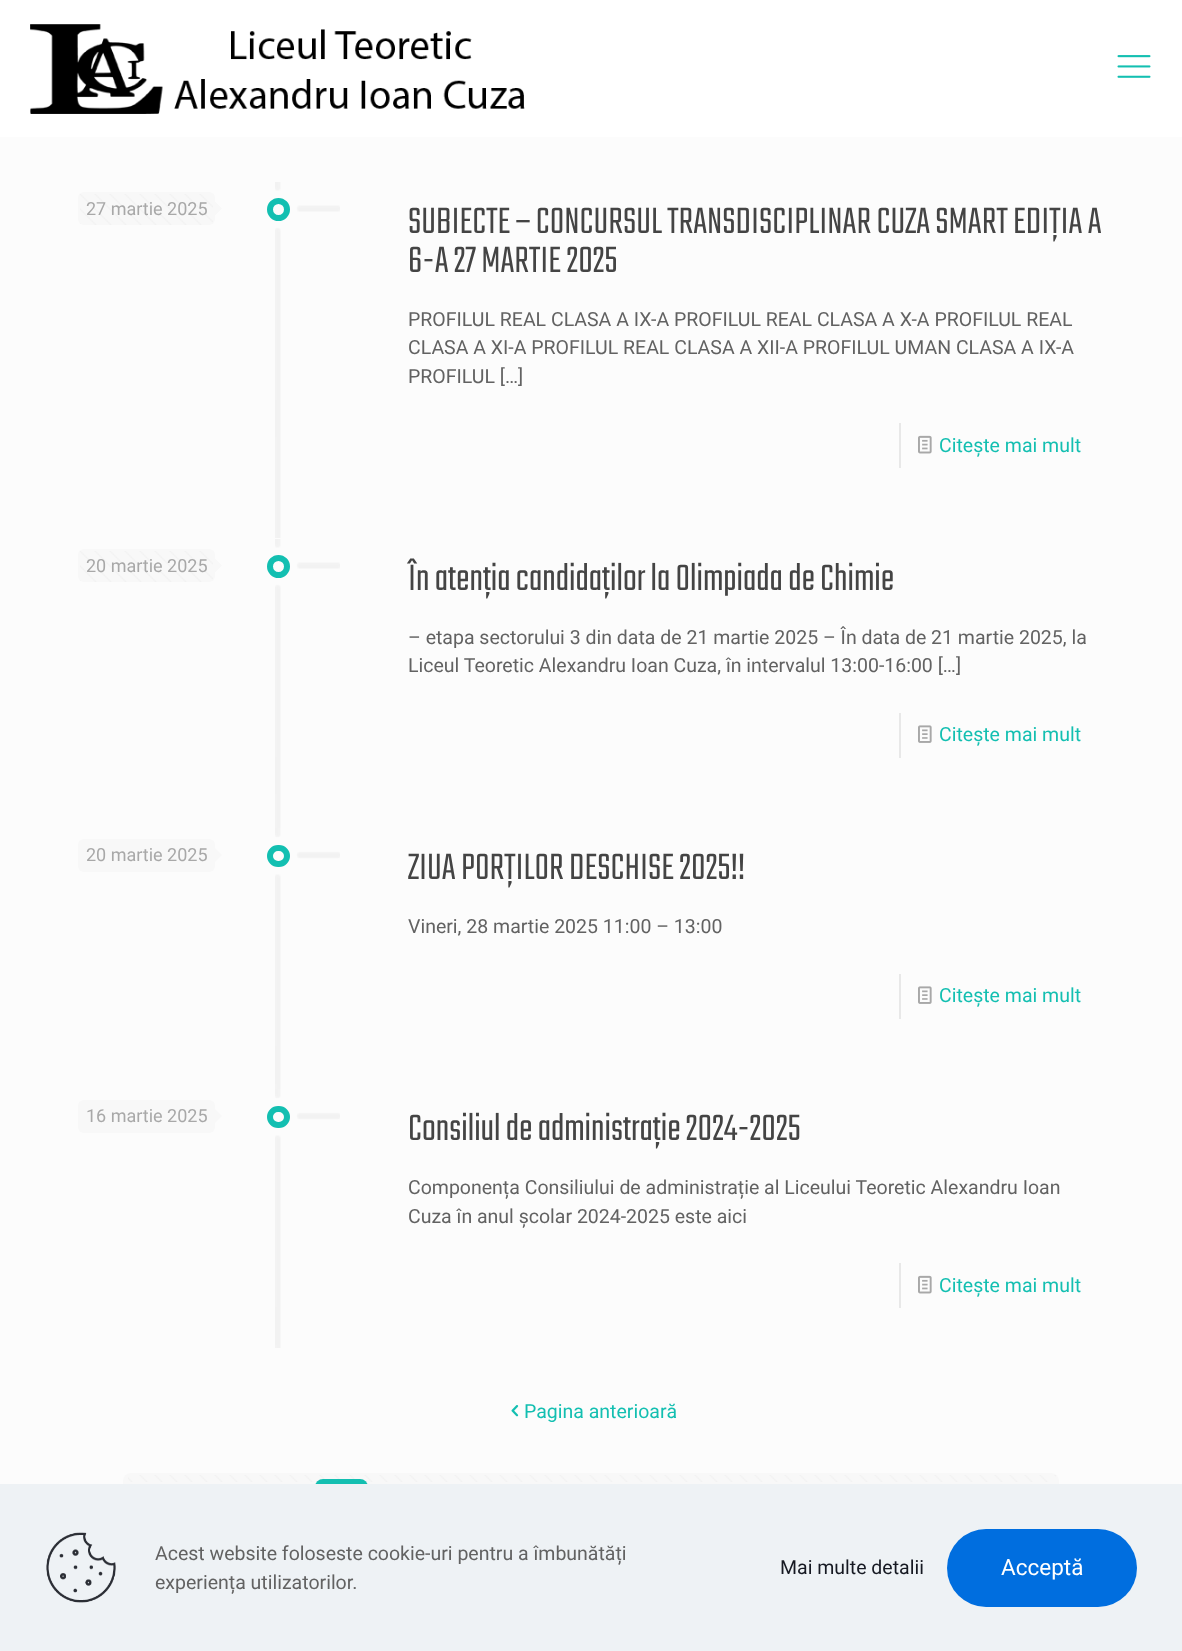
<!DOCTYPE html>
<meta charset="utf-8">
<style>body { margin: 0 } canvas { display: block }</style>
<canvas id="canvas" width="1182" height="1651"></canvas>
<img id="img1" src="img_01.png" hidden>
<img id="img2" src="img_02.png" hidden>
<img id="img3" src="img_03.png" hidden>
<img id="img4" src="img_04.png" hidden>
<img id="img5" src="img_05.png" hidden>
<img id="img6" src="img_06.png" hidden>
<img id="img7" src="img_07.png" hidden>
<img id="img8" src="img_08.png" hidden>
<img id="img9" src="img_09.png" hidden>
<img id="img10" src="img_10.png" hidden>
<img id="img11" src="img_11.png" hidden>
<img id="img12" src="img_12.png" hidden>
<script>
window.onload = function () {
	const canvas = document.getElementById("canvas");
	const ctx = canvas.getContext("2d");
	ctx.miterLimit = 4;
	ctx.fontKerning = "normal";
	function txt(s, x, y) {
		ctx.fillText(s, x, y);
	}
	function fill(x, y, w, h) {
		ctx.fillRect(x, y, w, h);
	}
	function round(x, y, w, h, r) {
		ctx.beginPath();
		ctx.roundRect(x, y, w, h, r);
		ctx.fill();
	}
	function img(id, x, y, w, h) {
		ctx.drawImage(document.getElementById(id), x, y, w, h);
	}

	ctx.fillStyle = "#FCFCFC";
	fill(0, 0, 1182, 1651);
	ctx.fillStyle = "#FFFFFF";
	fill(0, 0, 1182, 137);
	img("img1", 30, 24, 495, 90);
	img("img2", 1117, 55, 34, 23);
	img("img3", 275, 182, 65, 356);
	ctx.fillStyle = "#F8F8F8";
	round(78, 192, 137, 33, 6);
	img("img4", 80, 194, 133, 31);
	ctx.beginPath();
	ctx.moveTo(214.5, 216);
	ctx.lineTo(214.5, 201);
	ctx.lineTo(222, 208.5);
	ctx.closePath();
	ctx.fill();
	ctx.beginPath();
	ctx.arc(278.5, 209.5, 8.5, 0, Math.PI * 2);
	ctx.strokeStyle = "#13BFB1";
	ctx.lineWidth = 6;
	ctx.stroke();
	ctx.fillStyle = "#E8E8E8";
	fill(899, 423, 2, 45);
	img("img5", 918, 435, 14, 19);
	img("img6", 275, 539, 65, 289);
	ctx.fillStyle = "#F8F8F8";
	round(78, 549, 137, 33, 6);
	img("img4", 80, 551, 133, 31);
	ctx.beginPath();
	ctx.moveTo(214.5, 573);
	ctx.lineTo(214.5, 558);
	ctx.lineTo(222, 565.5);
	ctx.closePath();
	ctx.fill();
	ctx.beginPath();
	ctx.arc(278.5, 566.5, 8.5, 0, Math.PI * 2);
	ctx.stroke();
	ctx.fillStyle = "#E8E8E8";
	fill(899, 713, 2, 45);
	img("img7", 918, 725, 14, 18);
	img("img8", 275, 828, 65, 261);
	ctx.fillStyle = "#F8F8F8";
	round(78, 839, 137, 33, 6);
	ctx.beginPath();
	ctx.moveTo(214.5, 862.5);
	ctx.lineTo(214.5, 847.5);
	ctx.lineTo(222, 855);
	ctx.closePath();
	ctx.fill();
	ctx.beginPath();
	ctx.roundRect(270, 848, 17, 16, 8);
	ctx.stroke();
	ctx.fillStyle = "#E8E8E8";
	fill(899, 974, 2, 45);
	img("img7", 918, 986, 14, 18);
	img("img9", 275, 1089, 65, 259);
	ctx.fillStyle = "#F8F8F8";
	round(78, 1100, 137, 33, 6);
	ctx.beginPath();
	ctx.moveTo(214.5, 1123.5);
	ctx.lineTo(214.5, 1108.5);
	ctx.lineTo(222, 1116);
	ctx.closePath();
	ctx.fill();
	ctx.beginPath();
	ctx.roundRect(270, 1109, 17, 16, 8);
	ctx.stroke();
	ctx.fillStyle = "#E8E8E8";
	fill(899, 1263, 2, 45);
	img("img5", 918, 1275, 14, 19);
	img("img10", 511, 1405, 8, 12);
	ctx.fillStyle = "#F8F8F8";
	round(123, 1473, 936, 117, 8);
	img("img11", 128, 1475, 928, 7);
	ctx.fillStyle = "#13BFB1";
	round(315, 1479, 53, 53, 8);
	ctx.fillStyle = "#EEF2F5";
	fill(0, 1484, 1182, 167);
	img("img12", 46, 1532, 70, 71);
	ctx.fillStyle = "#006EDF";
	round(947, 1529, 190, 78, 39);
	ctx.font = "18px Roboto";
	ctx.fillStyle = "#A8A8A8";
	txt("27 martie 2025", 86, 215);
	ctx.font = "300 40.5px Teko";
	ctx.fillStyle = "#444444";
	txt("SUBIECTE – CONCURSUL TRANSDISCIPLINAR CUZA SMART EDIȚIA A", 408, 233);
	txt("6-A 27 MARTIE 2025", 408, 272);
	ctx.font = "19.5px Roboto";
	ctx.fillStyle = "#626262";
	txt("PROFILUL REAL CLASA A IX-A PROFILUL REAL CLASA A X-A PROFILUL REAL", 408, 326);
	txt("CLASA A XI-A PROFILUL REAL CLASA A XII-A PROFILUL UMAN CLASA A IX-A", 408, 354);
	txt("PROFILUL […]", 408, 383);
	ctx.fillStyle = "#13BFB1";
	txt("Citește mai mult", 939, 452);
	ctx.font = "18px Roboto";
	ctx.fillStyle = "#A8A8A8";
	txt("20 martie 2025", 86, 572);
	ctx.font = "300 40.5px Teko";
	ctx.fillStyle = "#444444";
	txt("În atenția candidaților la Olimpiada de Chimie", 408, 590);
	ctx.font = "19.5px Roboto";
	ctx.fillStyle = "#626262";
	txt("– etapa sectorului 3 din data de 21 martie 2025 – În data de 21 martie 2025, la", 408, 644);
	txt("Liceul Teoretic Alexandru Ioan Cuza, în intervalul 13:00-16:00 […]", 408, 672);
	ctx.fillStyle = "#13BFB1";
	txt("Citește mai mult", 939, 741);
	ctx.font = "18px Roboto";
	ctx.fillStyle = "#A8A8A8";
	txt("20 martie 2025", 86, 861);
	ctx.font = "300 40.5px Teko";
	ctx.fillStyle = "#444444";
	txt("ZIUA PORȚILOR DESCHISE 2025!!", 408, 879);
	ctx.font = "19.5px Roboto";
	ctx.fillStyle = "#626262";
	txt("Vineri, 28 martie 2025 11:00 – 13:00", 408, 933);
	ctx.fillStyle = "#13BFB1";
	txt("Citește mai mult", 939, 1002);
	ctx.font = "18px Roboto";
	ctx.fillStyle = "#A8A8A8";
	txt("16 martie 2025", 86, 1122);
	ctx.font = "300 40.5px Teko";
	ctx.fillStyle = "#444444";
	txt("Consiliul de administrație 2024-2025", 408, 1140);
	ctx.font = "19.5px Roboto";
	ctx.fillStyle = "#626262";
	txt("Componența Consiliului de administrație al Liceului Teoretic Alexandru Ioan", 408, 1194);
	txt("Cuza în anul școlar 2024-2025 este aici", 408, 1223);
	ctx.fillStyle = "#13BFB1";
	txt("Citește mai mult", 939, 1292);
	txt("Pagina anterioară", 524, 1418);
	ctx.fillStyle = "#626262";
	txt("Acest website foloseste cookie-uri pentru a îmbunătăți", 155, 1560);
	txt("experiența utilizatorilor.", 155, 1589);
	ctx.fillStyle = "#161922";
	txt("Mai multe detalii", 780, 1574);
	ctx.font = "22.5px Roboto";
	ctx.fillStyle = "#FFFFFF";
	txt("Acceptă", 1001, 1575);
};
</script>
